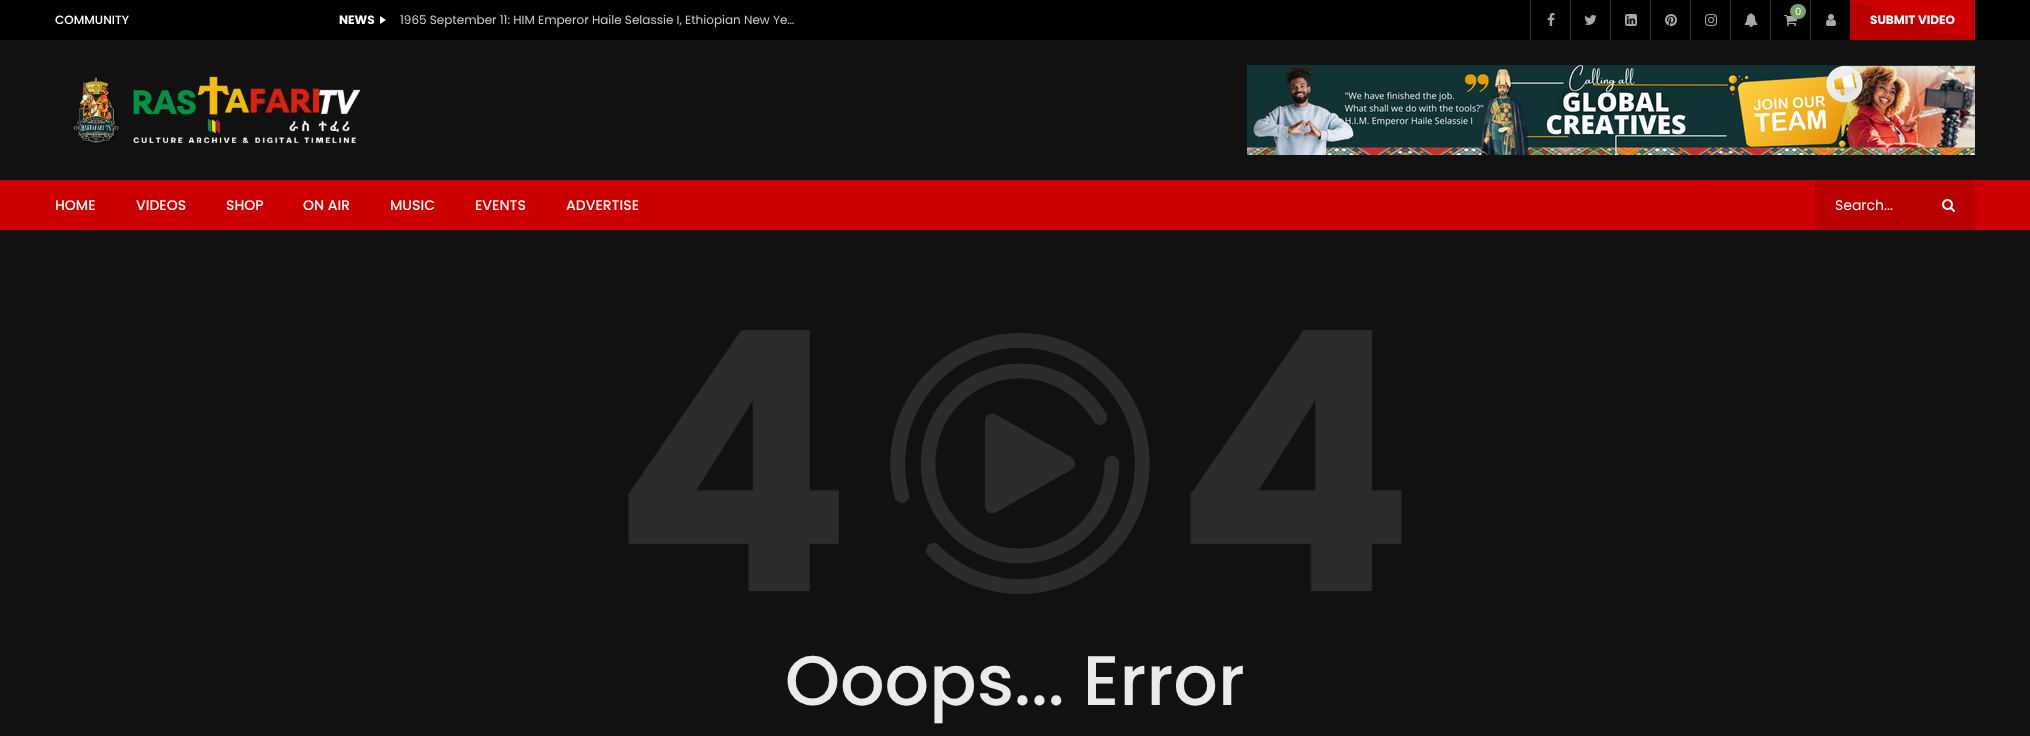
<!DOCTYPE html>
<meta charset="utf-8">
<style>body { margin: 0 } canvas { display: block }</style>
<canvas id="canvas" width="2030" height="736"></canvas>
<img id="img1" src="img_01.png" hidden>
<img id="img2" src="img_02.png" hidden>
<img id="img3" src="img_03.png" hidden>
<img id="img4" src="img_04.png" hidden>
<img id="img5" src="img_05.png" hidden>
<img id="img6" src="img_06.png" hidden>
<img id="img7" src="img_07.png" hidden>
<img id="img8" src="img_08.png" hidden>
<img id="img9" src="img_09.png" hidden>
<img id="img10" src="img_10.png" hidden>
<img id="img11" src="img_11.png" hidden>
<img id="img12" src="img_12.png" hidden>
<script>
window.onload = function () {
	const canvas = document.getElementById("canvas");
	const ctx = canvas.getContext("2d");
	ctx.miterLimit = 4;
	ctx.fontKerning = "normal";
	function txt(s, x, y) {
		ctx.fillText(s, x, y);
	}
	function fill(x, y, w, h) {
		ctx.fillRect(x, y, w, h);
	}
	function round(x, y, w, h, r) {
		ctx.beginPath();
		ctx.roundRect(x, y, w, h, r);
		ctx.fill();
	}
	function img(id, x, y, w, h) {
		ctx.drawImage(document.getElementById(id), x, y, w, h);
	}
	let gradient;

	ctx.fillStyle = "#111111";
	fill(0, 0, 2030, 736);
	ctx.fillStyle = "#000000";
	fill(0, 0, 2030, 40);
	ctx.fillStyle = "#FFFFFF";
	ctx.beginPath();
	ctx.moveTo(380, 24);
	ctx.lineTo(380, 16);
	ctx.lineTo(386, 20);
	ctx.closePath();
	ctx.fill();
	ctx.fillStyle = "#333333";
	fill(1530, 0, 1, 40);
	img("img1", 1547, 13, 8, 13);
	fill(1570, 0, 1, 40);
	img("img2", 1584, 15, 13, 10);
	fill(1610, 0, 1, 40);
	img("img3", 1625, 14, 12, 12);
	fill(1650, 0, 1, 40);
	img("img4", 1665, 14, 12, 12);
	fill(1690, 0, 1, 40);
	img("img5", 1705, 14, 12, 12);
	fill(1730, 0, 1, 40);
	img("img6", 1744, 13, 14, 14);
	fill(1770, 0, 1, 40);
	img("img7", 1784, 15, 13, 11);
	ctx.fillStyle = "#77A464";
	round(1790, 4, 16, 15, 7.5);
	ctx.fillStyle = "#333333";
	fill(1810, 0, 1, 40);
	img("img8", 1826, 14, 10, 12);
	gradient = ctx.createLinearGradient(1924, -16, 1901, 56);
	gradient.addColorStop(0.5, "#CC0000");
	gradient.addColorStop(0.5, "#B80000");
	ctx.fillStyle = gradient;
	fill(1850, 0, 125, 40);
	img("img9", 73, 76, 288, 69);
	img("img10", 1247, 65, 728, 90);
	ctx.fillStyle = "#CC0000";
	fill(0, 180, 2030, 50);
	ctx.fillStyle = "#B80000";
	fill(1815, 180, 160, 50);
	img("img11", 1942, 199, 13, 13);
	img("img12", 628, 330, 774, 264);
	ctx.font = "500 12px Poppins";
	ctx.fillStyle = "#FFFFFF";
	txt("COMMUNITY", 55, 24);
	ctx.font = "bold 12px Poppins";
	txt("NEWS", 339, 24);
	ctx.font = "12px Poppins";
	ctx.fillStyle = "#CCCCCC";
	txt("1965 September 11: HIM Emperor Haile Selassie I, Ethiopian New Ye…", 400, 24);
	ctx.font = "10px Poppins";
	ctx.fillStyle = "#FFFFFF";
	txt("0", 1795, 15);
	ctx.font = "bold 12px Poppins";
	txt("SUBMIT VIDEO", 1870, 24);
	ctx.font = "500 14px Poppins";
	txt("HOME", 55, 210);
	txt("VIDEOS", 136, 210);
	txt("SHOP", 226, 210);
	txt("ON AIR", 303, 210);
	txt("MUSIC", 390, 210);
	txt("EVENTS", 475, 210);
	txt("ADVERTISE", 566, 210);
	ctx.font = "14px Poppins";
	txt("Search...", 1835, 210);
	ctx.font = "500 70px Poppins";
	ctx.fillStyle = "#EAEAEA";
	txt("Ooops... Error", 785, 705);
};
</script>
